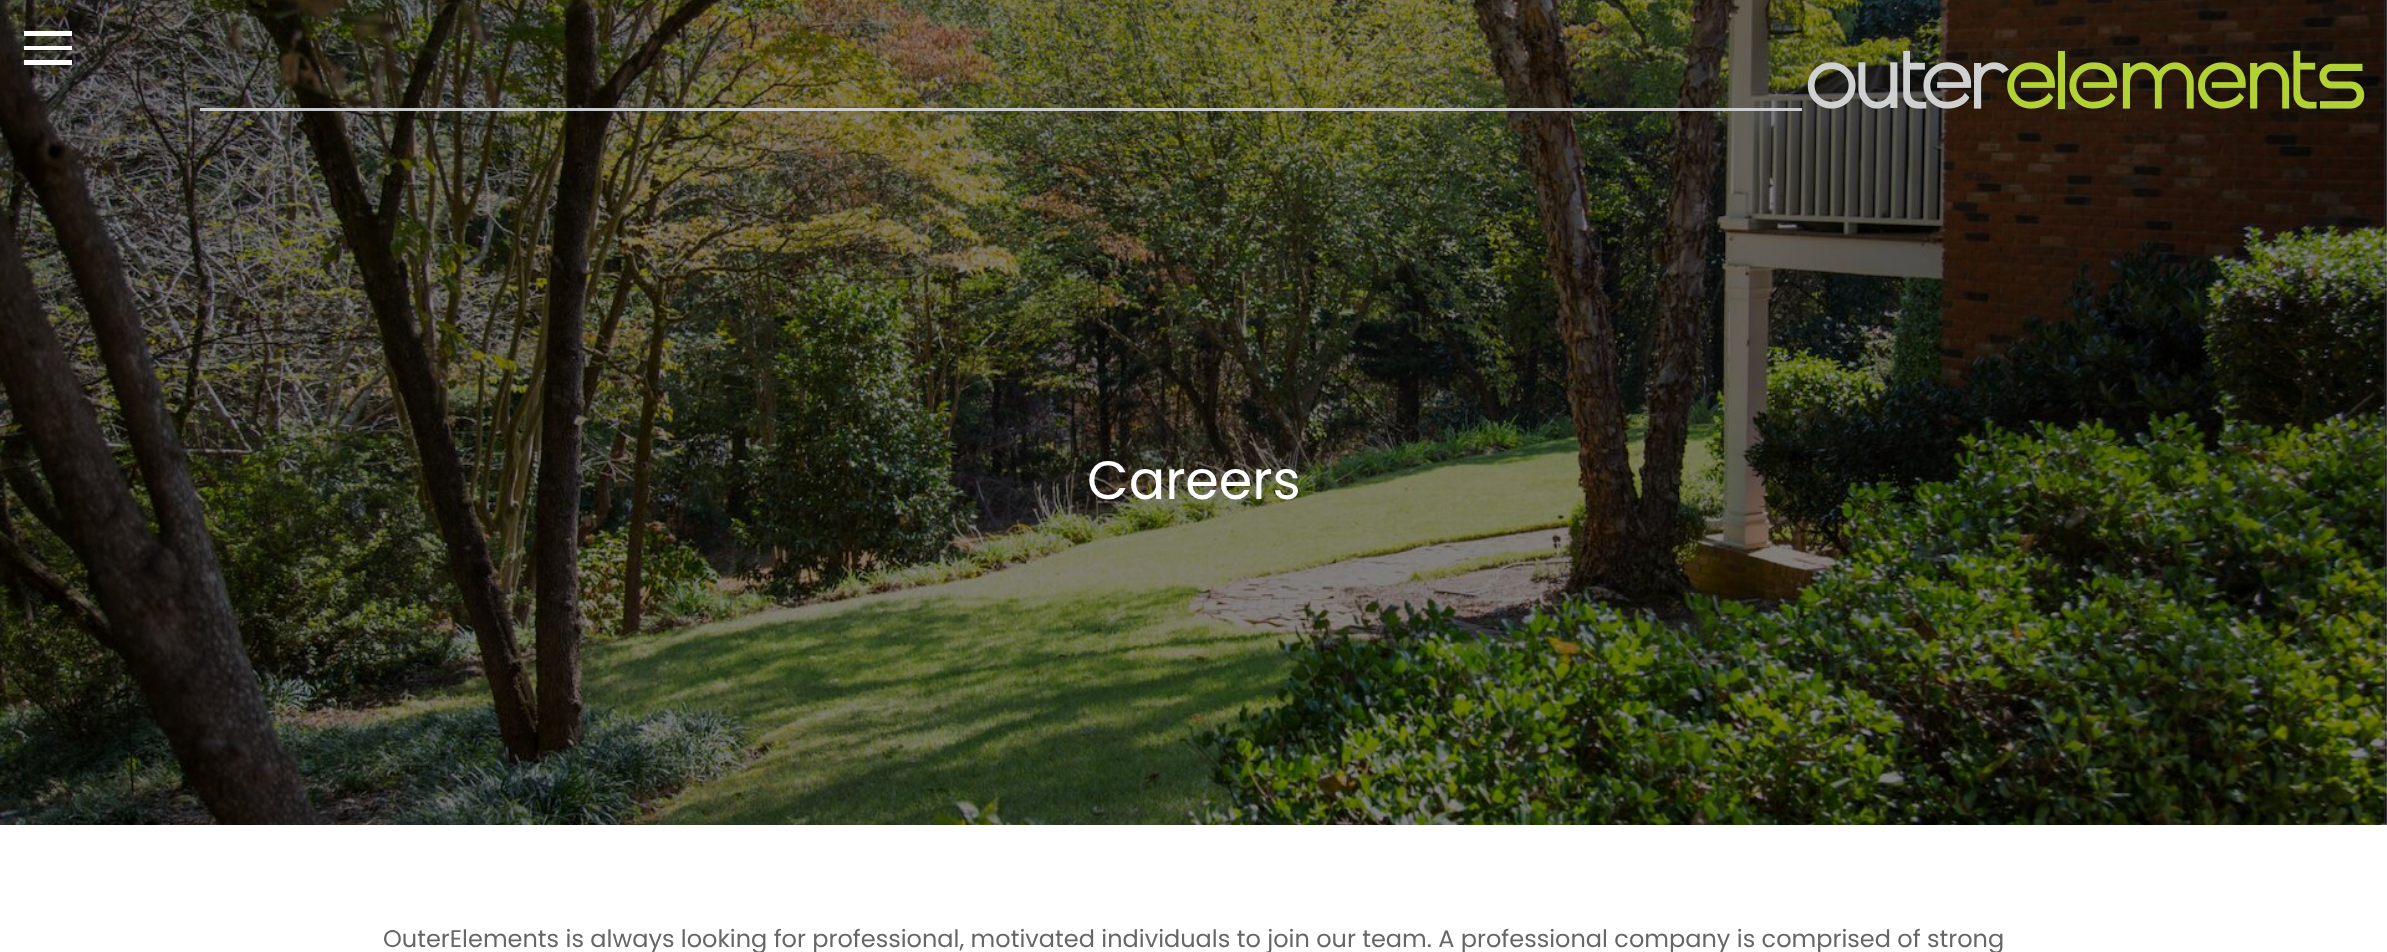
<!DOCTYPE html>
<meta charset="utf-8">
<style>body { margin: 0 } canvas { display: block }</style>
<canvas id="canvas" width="2387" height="952"></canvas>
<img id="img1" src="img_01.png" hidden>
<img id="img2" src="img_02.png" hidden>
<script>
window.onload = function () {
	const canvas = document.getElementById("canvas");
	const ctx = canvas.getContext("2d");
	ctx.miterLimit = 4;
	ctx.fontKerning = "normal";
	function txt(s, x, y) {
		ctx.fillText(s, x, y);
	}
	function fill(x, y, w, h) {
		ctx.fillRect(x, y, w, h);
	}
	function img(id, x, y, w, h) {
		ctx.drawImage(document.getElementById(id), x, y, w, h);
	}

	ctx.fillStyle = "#FFFFFF";
	fill(0, 0, 2387, 952);
	img("img1", 0, 0, 2387, 825);
	ctx.beginPath();
	ctx.moveTo(24, 31);
	ctx.lineTo(72, 31);
	ctx.lineTo(72, 36);
	ctx.lineTo(24, 36);
	ctx.closePath();
	ctx.moveTo(24, 46);
	ctx.lineTo(72, 46);
	ctx.lineTo(72, 50);
	ctx.lineTo(24, 50);
	ctx.closePath();
	ctx.moveTo(24, 60);
	ctx.lineTo(72, 60);
	ctx.lineTo(72, 65);
	ctx.lineTo(24, 65);
	ctx.closePath();
	ctx.fill();
	img("img2", 200, 50, 2165, 61);
	ctx.font = "54px Poppins";
	txt("Careers", 1087, 499);
	ctx.font = "24px Poppins";
	ctx.fillStyle = "#666666";
	txt("OuterElements is always looking for professional, motivated individuals to join our team. A professional company is comprised of strong", 383, 947);
};
</script>
